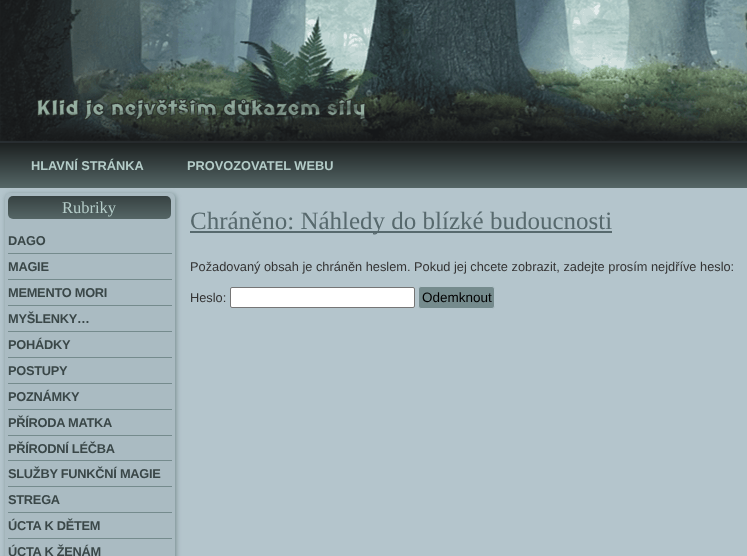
<!DOCTYPE html>
<meta charset="utf-8">
<style>body { margin: 0 } canvas { display: block }</style>
<canvas id="canvas" width="747" height="556"></canvas>
<img id="img1" src="img_01.png" hidden>
<img id="img2" src="img_02.png" hidden>
<img id="img3" src="img_03.png" hidden>
<img id="img4" src="img_04.png" hidden>
<script>
window.onload = function () {
	const canvas = document.getElementById("canvas");
	const ctx = canvas.getContext("2d");
	ctx.miterLimit = 4;
	ctx.fontKerning = "normal";
	function txt(s, x, y) {
		ctx.fillText(s, x, y);
	}
	function fill(x, y, w, h) {
		ctx.fillRect(x, y, w, h);
	}
	function round(x, y, w, h, r) {
		ctx.beginPath();
		ctx.roundRect(x, y, w, h, r);
		ctx.fill();
	}
	function img(id, x, y, w, h) {
		ctx.drawImage(document.getElementById(id), x, y, w, h);
	}

	ctx.fillStyle = "#FFFFFF";
	fill(0, 0, 747, 556);
	img("img1", 0, 141, 747, 2);
	img("img2", 0, 0, 747, 141);
	img("img3", 0, 143, 747, 45);
	ctx.fillStyle = "#B4C5CC";
	fill(0, 188, 747, 368);
	ctx.fillStyle = "#758B8D";
	ctx.filter = "blur(2.5px)";
	ctx.beginPath();
	ctx.roundRect(6, 194, 170, 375, 5);
	ctx.fill();
	ctx.filter = "none";
	ctx.fillStyle = "#AABBC2";
	round(5, 193, 170, 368, 5);
	img("img4", 8, 196, 163, 23);
	ctx.fillStyle = "#758B8D";
	fill(8, 253, 164, 1);
	fill(8, 279, 164, 1);
	fill(8, 305, 164, 1);
	fill(8, 331, 164, 1);
	fill(8, 357, 164, 1);
	fill(8, 383, 164, 1);
	fill(8, 409, 164, 1);
	fill(8, 435, 164, 1);
	fill(8, 460, 164, 1);
	fill(8, 486, 164, 1);
	fill(8, 512, 164, 1);
	fill(8, 538, 164, 1);
	ctx.fillStyle = "#57696D";
	fill(190, 231, 422, 2);
	ctx.fillStyle = "#FFFFFF";
	ctx.beginPath();
	ctx.roundRect(230.5, 287.5, 184, 20, 1.5);
	ctx.fill();
	ctx.strokeStyle = "#767676";
	ctx.stroke();
	ctx.fillStyle = "#758B8D";
	ctx.beginPath();
	ctx.roundRect(418.5, 286.5, 76, 22, 2.5);
	ctx.fill();
	ctx.strokeStyle = "#B4C5CC";
	ctx.stroke();
	ctx.font = "bold 12.8px Liberation Sans";
	ctx.fillStyle = "#B4CCC8";
	txt("HLAVNÍ STRÁNKA", 31, 170);
	txt("PROVOZOVATEL WEBU", 187, 170);
	ctx.font = "16.5px Liberation Serif";
	txt("Rubriky", 62, 213);
	ctx.letterSpacing = "-0.25px";
	ctx.font = "bold 12.8px Liberation Sans";
	ctx.fillStyle = "#3A4748";
	txt("DAGO", 8, 245);
	txt("MAGIE", 8, 271);
	txt("MEMENTO MORI", 8, 297);
	txt("MYŠLENKY…", 8, 323);
	txt("POHÁDKY", 8, 349);
	txt("POSTUPY", 8, 375);
	txt("POZNÁMKY", 8, 401);
	txt("PŘÍRODA MATKA", 8, 427);
	txt("PŘÍRODNÍ LÉČBA", 8, 453);
	txt("SLUŽBY FUNKČNÍ MAGIE", 8, 478);
	txt("STREGA", 8, 504);
	txt("ÚCTA K DĚTEM", 8, 530);
	txt("ÚCTA K ŽENÁM", 8, 556);
	ctx.letterSpacing = "0px";
	ctx.font = "25px Liberation Serif";
	ctx.fillStyle = "#57696D";
	txt("Chráněno: Náhledy do blízké budoucnosti", 190, 229);
	ctx.font = "12.8px Liberation Sans";
	ctx.fillStyle = "#333333";
	txt("Požadovaný obsah je chráněn heslem. Pokud jej chcete zobrazit, zadejte prosím nejdříve heslo:", 190, 271);
	txt("Heslo:", 190, 302);
	ctx.font = "13.5px Liberation Sans";
	ctx.fillStyle = "#000000";
	txt("Odemknout", 422, 302);
};
</script>
